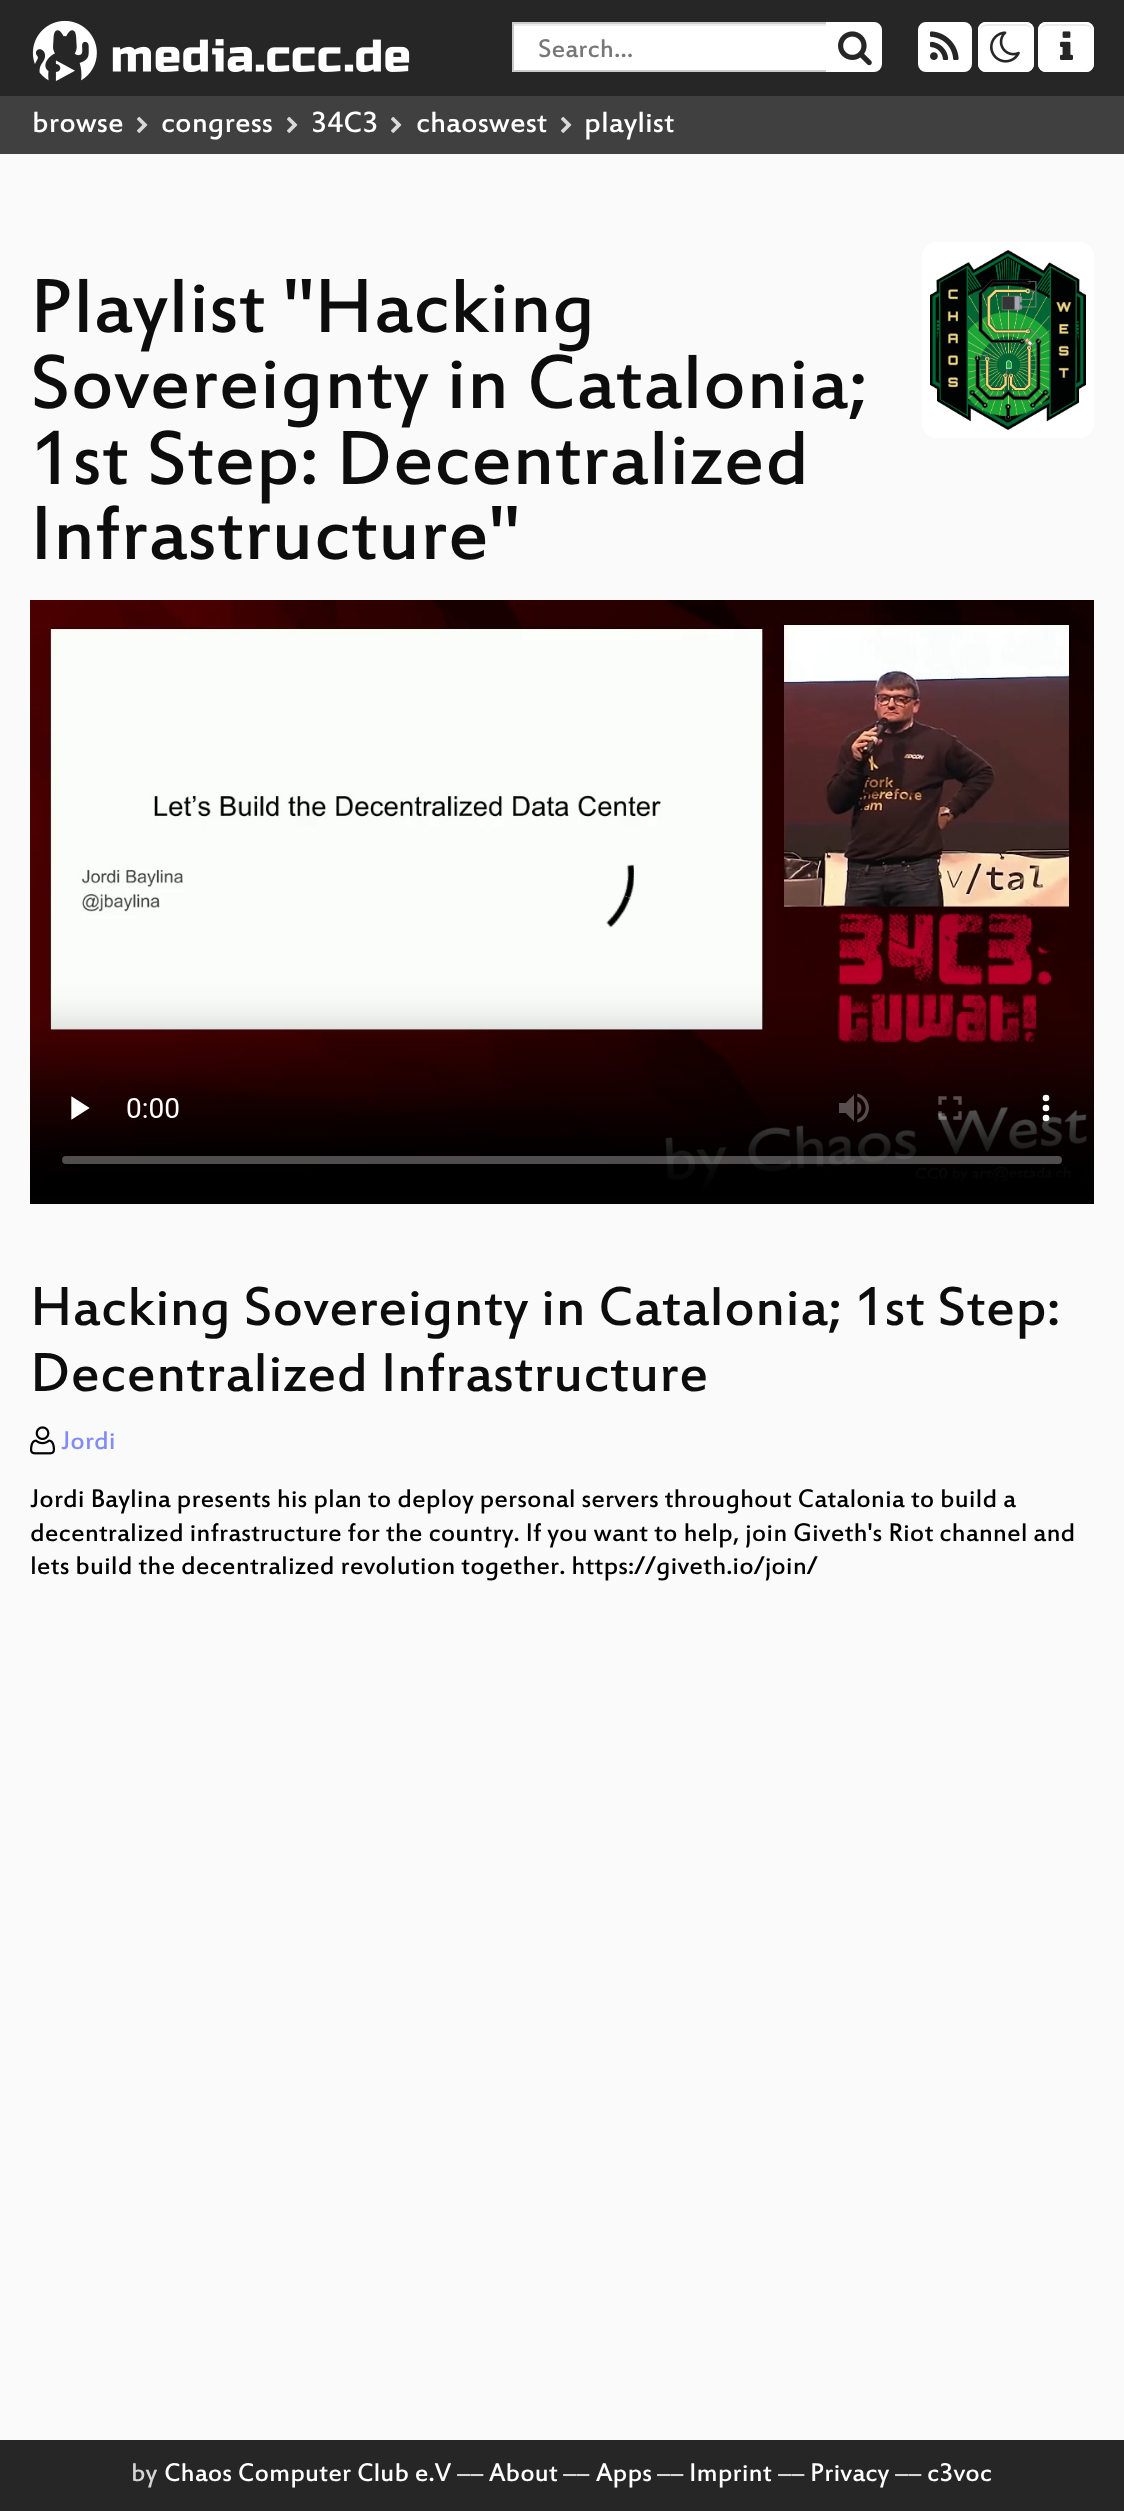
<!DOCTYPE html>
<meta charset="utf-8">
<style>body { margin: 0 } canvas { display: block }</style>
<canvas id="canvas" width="1124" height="2511"></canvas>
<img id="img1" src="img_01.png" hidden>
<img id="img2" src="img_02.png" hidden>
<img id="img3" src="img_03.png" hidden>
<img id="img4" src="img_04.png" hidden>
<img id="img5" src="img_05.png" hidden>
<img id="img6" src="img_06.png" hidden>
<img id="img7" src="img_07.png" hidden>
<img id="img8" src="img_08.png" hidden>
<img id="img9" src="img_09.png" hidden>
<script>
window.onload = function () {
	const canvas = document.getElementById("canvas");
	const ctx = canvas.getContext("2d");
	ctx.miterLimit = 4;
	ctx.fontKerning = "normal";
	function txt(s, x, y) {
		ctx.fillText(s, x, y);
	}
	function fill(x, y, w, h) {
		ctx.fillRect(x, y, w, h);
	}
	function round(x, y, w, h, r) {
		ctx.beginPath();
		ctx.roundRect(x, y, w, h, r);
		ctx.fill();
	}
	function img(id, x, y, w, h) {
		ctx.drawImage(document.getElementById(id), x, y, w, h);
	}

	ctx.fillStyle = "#FAFAFA";
	fill(0, 0, 1124, 2511);
	ctx.fillStyle = "#262626";
	fill(0, 0, 1124, 96);
	img("img1", 32, 20, 378, 61);
	ctx.fillStyle = "#FFFFFF";
	fill(514, 26, 312, 44);
	ctx.fillStyle = "#ECECEC";
	fill(514, 24, 312, 2);
	ctx.strokeStyle = "#CCCCCC";
	ctx.lineWidth = 2;
	ctx.strokeRect(513, 23, 314, 48);
	ctx.fillStyle = "#FFFFFF";
	ctx.beginPath();
	ctx.roundRect(827, 23, 54, 48, [0, 7, 7, 0]);
	ctx.fill();
	ctx.strokeStyle = "#FFFFFF";
	ctx.stroke();
	img("img2", 838, 31, 34, 35);
	ctx.beginPath();
	ctx.roundRect(919, 23, 52, 48, 7);
	ctx.fill();
	ctx.stroke();
	img("img3", 930, 31, 29, 29);
	round(978, 22, 56, 50, 8);
	ctx.fillStyle = "#ECECEC";
	ctx.beginPath();
	ctx.moveTo(986, 26);
	ctx.lineTo(1026, 26);
	ctx.bezierCurveTo(1029, 26, 1032, 29, 1032, 32);
	ctx.bezierCurveTo(1032, 23, 1027, 24, 1019, 24);
	ctx.lineTo(993, 24);
	ctx.bezierCurveTo(985, 24, 980, 23, 980, 32);
	ctx.bezierCurveTo(980, 29, 983, 26, 986, 26);
	ctx.closePath();
	ctx.fill();
	ctx.beginPath();
	ctx.roundRect(979, 23, 54, 48, 7);
	ctx.stroke();
	img("img4", 990, 31, 30, 32);
	ctx.fillStyle = "#FFFFFF";
	round(1038, 22, 56, 50, 8);
	ctx.fillStyle = "#ECECEC";
	ctx.beginPath();
	ctx.moveTo(1046, 26);
	ctx.lineTo(1086, 26);
	ctx.bezierCurveTo(1089, 26, 1092, 29, 1092, 32);
	ctx.bezierCurveTo(1092, 23, 1087, 24, 1079, 24);
	ctx.lineTo(1053, 24);
	ctx.bezierCurveTo(1045, 24, 1040, 23, 1040, 32);
	ctx.bezierCurveTo(1040, 29, 1043, 26, 1046, 26);
	ctx.closePath();
	ctx.fill();
	ctx.beginPath();
	ctx.roundRect(1039, 23, 54, 48, 7);
	ctx.stroke();
	img("img5", 1060, 31, 13, 29);
	ctx.fillStyle = "#404040";
	fill(0, 96, 1124, 58);
	img("img6", 137, 116, 11, 17);
	img("img6", 287, 116, 11, 17);
	img("img6", 391, 116, 11, 17);
	img("img6", 561, 116, 11, 17);
	ctx.fillStyle = "#FFFFFF";
	round(922, 242, 172, 196, 14);
	img("img7", 930, 250, 156, 180);
	img("img8", 30, 600, 1064, 604);
	img("img9", 30, 1426, 25, 29);
	ctx.fillStyle = "#262626";
	fill(0, 2440, 1124, 71);
	ctx.font = "28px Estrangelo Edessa";
	ctx.fillStyle = "#777777";
	txt("Search…", 538, 57);
	ctx.font = "32px Estrangelo Edessa";
	ctx.fillStyle = "#FFFFFF";
	txt("browse", 32, 132);
	txt("congress", 161, 132);
	txt("34C3", 311, 132);
	txt("chaoswest", 416, 132);
	txt("playlist", 584, 132);
	ctx.font = "84px Estrangelo Edessa";
	ctx.fillStyle = "#0D0D0D";
	txt("Playlist \"Hacking", 30, 332);
	txt("Sovereignty in Catalonia;", 30, 408);
	txt("1st Step: Decentralized", 30, 484);
	txt("Infrastructure\"", 30, 559);
	ctx.font = "60px Estrangelo Edessa";
	txt("Hacking Sovereignty in Catalonia; 1st Step:", 30, 1325);
	txt("Decentralized Infrastructure", 30, 1391);
	ctx.font = "28px Estrangelo Edessa";
	ctx.fillStyle = "#818CF8";
	txt("Jordi", 61, 1449);
	ctx.fillStyle = "#000000";
	txt("Jordi Baylina presents his plan to deploy personal servers throughout Catalonia to build a", 30, 1507);
	txt("decentralized infrastructure for the country. If you want to help, join Giveth's Riot channel and", 30, 1541);
	txt("lets build the decentralized revolution together. https://giveth.io/join/", 30, 1574);
	ctx.fillStyle = "#D4D4D4";
	txt("by", 131, 2481);
	ctx.fillStyle = "#FFFFFF";
	txt("Chaos Computer Club e.V", 164, 2481);
	ctx.fillStyle = "#D4D4D4";
	txt("––", 457, 2481);
	ctx.fillStyle = "#FFFFFF";
	txt("About", 489, 2481);
	ctx.fillStyle = "#D4D4D4";
	txt("––", 563, 2481);
	ctx.fillStyle = "#FFFFFF";
	txt("Apps", 596, 2481);
	ctx.fillStyle = "#D4D4D4";
	txt("––", 657, 2481);
	ctx.fillStyle = "#FFFFFF";
	txt("Imprint", 689, 2481);
	ctx.fillStyle = "#D4D4D4";
	txt("––", 778, 2481);
	ctx.fillStyle = "#FFFFFF";
	txt("Privacy", 810, 2481);
	ctx.fillStyle = "#D4D4D4";
	txt("––", 895, 2481);
	ctx.fillStyle = "#FFFFFF";
	txt("c3voc", 927, 2481);
};
</script>
